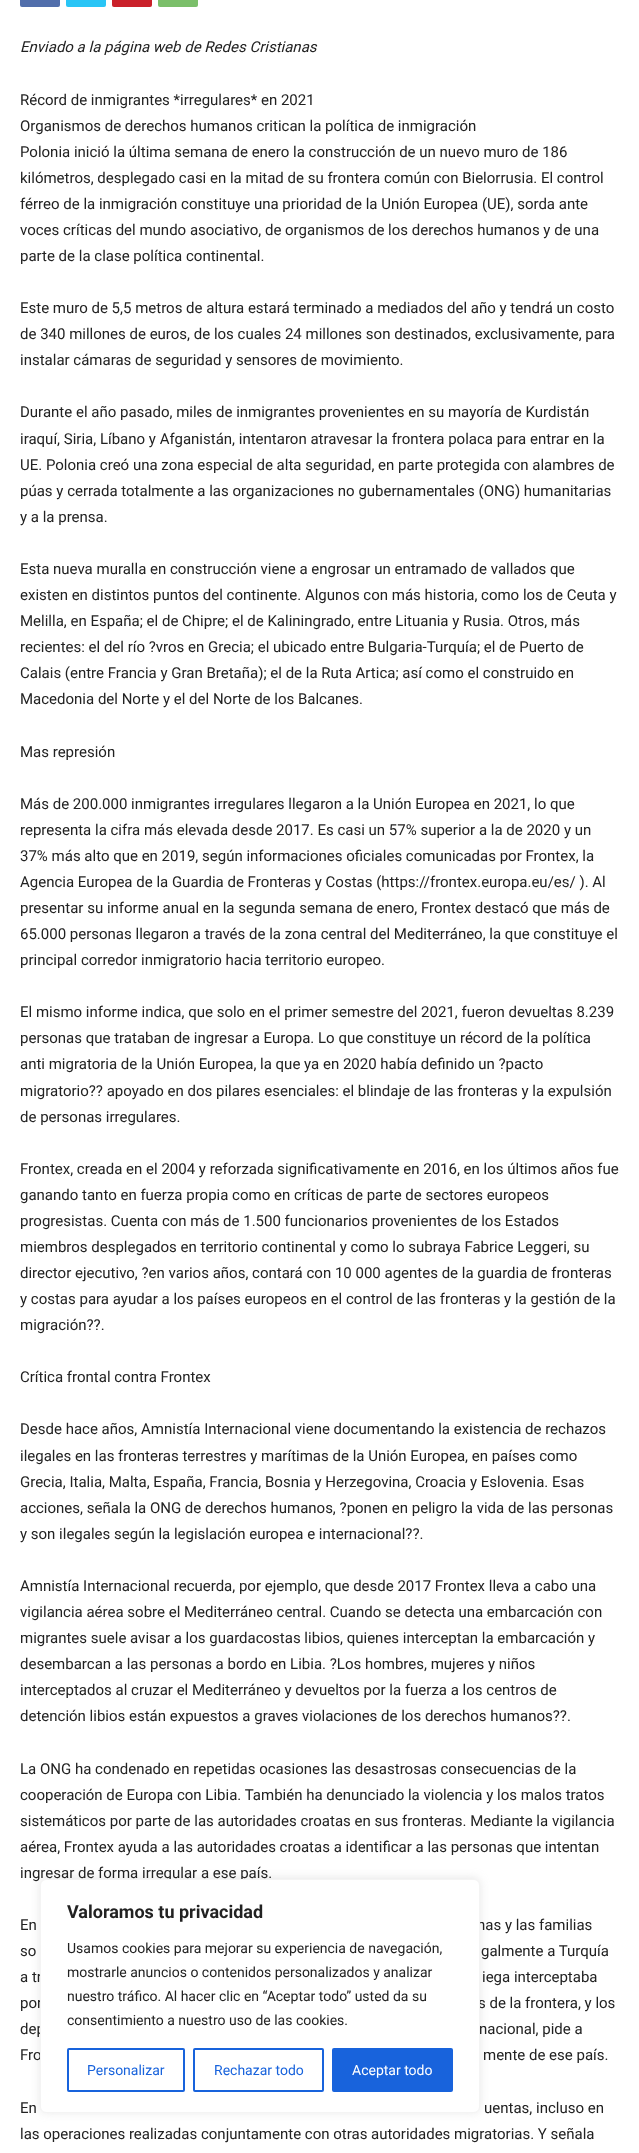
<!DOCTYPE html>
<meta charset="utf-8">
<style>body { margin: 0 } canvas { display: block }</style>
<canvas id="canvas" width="639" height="2153"></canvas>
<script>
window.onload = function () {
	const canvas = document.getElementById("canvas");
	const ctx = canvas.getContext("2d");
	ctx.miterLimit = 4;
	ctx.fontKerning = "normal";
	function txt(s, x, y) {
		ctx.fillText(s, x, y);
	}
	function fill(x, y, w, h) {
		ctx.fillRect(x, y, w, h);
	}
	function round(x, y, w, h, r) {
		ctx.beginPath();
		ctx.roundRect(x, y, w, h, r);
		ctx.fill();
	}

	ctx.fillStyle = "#FFFFFF";
	fill(0, 0, 639, 2153);
	ctx.fillStyle = "#516EAB";
	round(20, -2, 40, 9, 2);
	ctx.fillStyle = "#29C5F6";
	round(66, -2, 40, 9, 2);
	ctx.fillStyle = "#CA212A";
	round(112, -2, 40, 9, 2);
	ctx.fillStyle = "#7BBF6A";
	round(158, -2, 40, 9, 2);
	ctx.fillStyle = "rgba(172, 171, 171, 0.3)";
	ctx.filter = "blur(5px)";
	ctx.beginPath();
	ctx.roundRect(40, 1878, 440, 234, 6);
	ctx.fill();
	ctx.filter = "none";
	ctx.font = "italic 15px Roboto";
	ctx.fillStyle = "#222222";
	txt("Enviado a la página web de Redes Cristianas", 20, 52);
	ctx.font = "15px Roboto";
	txt("Récord de inmigrantes *irregulares* en 2021", 20, 105);
	txt("Organismos de derechos humanos critican la política de inmigración", 20, 131);
	txt("Polonia inició la última semana de enero la construcción de un nuevo muro de 186", 20, 157);
	txt("kilómetros, desplegado casi en la mitad de su frontera común con Bielorrusia. El control", 20, 183);
	txt("férreo de la inmigración constituye una prioridad de la Unión Europea (UE), sorda ante", 20, 209);
	txt("voces críticas del mundo asociativo, de organismos de los derechos humanos y de una", 20, 235);
	txt("parte de la clase política continental.", 20, 261);
	txt("Este muro de 5,5 metros de altura estará terminado a mediados del año y tendrá un costo", 20, 313);
	txt("de 340 millones de euros, de los cuales 24 millones son destinados, exclusivamente, para", 20, 339);
	txt("instalar cámaras de seguridad y sensores de movimiento.", 20, 365);
	txt("Durante el año pasado, miles de inmigrantes provenientes en su mayoría de Kurdistán", 20, 417);
	txt("iraquí, Siria, Líbano y Afganistán, intentaron atravesar la frontera polaca para entrar en la", 20, 444);
	txt("UE. Polonia creó una zona especial de alta seguridad, en parte protegida con alambres de", 20, 470);
	txt("púas y cerrada totalmente a las organizaciones no gubernamentales (ONG) humanitarias", 20, 496);
	txt("y a la prensa.", 20, 522);
	txt("Esta nueva muralla en construcción viene a engrosar un entramado de vallados que", 20, 574);
	txt("existen en distintos puntos del continente. Algunos con más historia, como los de Ceuta y", 20, 600);
	txt("Melilla, en España; el de Chipre; el de Kaliningrado, entre Lituania y Rusia. Otros, más", 20, 626);
	txt("recientes: el del río ?vros en Grecia; el ubicado entre Bulgaria-Turquía; el de Puerto de", 20, 652);
	txt("Calais (entre Francia y Gran Bretaña); el de la Ruta Artica; así como el construido en", 20, 678);
	txt("Macedonia del Norte y el del Norte de los Balcanes.", 20, 704);
	txt("Mas represión", 20, 757);
	txt("Más de 200.000 inmigrantes irregulares llegaron a la Unión Europea en 2021, lo que", 20, 809);
	txt("representa la cifra más elevada desde 2017. Es casi un 57% superior a la de 2020 y un", 20, 835);
	txt("37% más alto que en 2019, según informaciones oficiales comunicadas por Frontex, la", 20, 861);
	txt("Agencia Europea de la Guardia de Fronteras y Costas (https://frontex.europa.eu/es/ ). Al", 20, 887);
	txt("presentar su informe anual en la segunda semana de enero, Frontex destacó que más de", 20, 913);
	txt("65.000 personas llegaron a través de la zona central del Mediterráneo, la que constituye el", 20, 939);
	txt("principal corredor inmigratorio hacia territorio europeo.", 20, 965);
	txt("El mismo informe indica, que solo en el primer semestre del 2021, fueron devueltas 8.239", 20, 1017);
	txt("personas que trataban de ingresar a Europa. Lo que constituye un récord de la política", 20, 1043);
	txt("anti migratoria de la Unión Europea, la que ya en 2020 había definido un ?pacto", 20, 1069);
	txt("migratorio?? apoyado en dos pilares esenciales: el blindaje de las fronteras y la expulsión", 20, 1096);
	txt("de personas irregulares.", 20, 1122);
	txt("Frontex, creada en el 2004 y reforzada significativamente en 2016, en los últimos años fue", 20, 1174);
	txt("ganando tanto en fuerza propia como en críticas de parte de sectores europeos", 20, 1200);
	txt("progresistas. Cuenta con más de 1.500 funcionarios provenientes de los Estados", 20, 1226);
	txt("miembros desplegados en territorio continental y como lo subraya Fabrice Leggeri, su", 20, 1252);
	txt("director ejecutivo, ?en varios años, contará con 10 000 agentes de la guardia de fronteras", 20, 1278);
	txt("y costas para ayudar a los países europeos en el control de las fronteras y la gestión de la", 20, 1304);
	txt("migración??.", 20, 1330);
	txt("Crítica frontal contra Frontex", 20, 1382);
	txt("Desde hace años, Amnistía Internacional viene documentando la existencia de rechazos", 20, 1434);
	txt("ilegales en las fronteras terrestres y marítimas de la Unión Europea, en países como", 20, 1461);
	txt("Grecia, Italia, Malta, España, Francia, Bosnia y Herzegovina, Croacia y Eslovenia. Esas", 20, 1487);
	txt("acciones, señala la ONG de derechos humanos, ?ponen en peligro la vida de las personas", 20, 1513);
	txt("y son ilegales según la legislación europea e internacional??.", 20, 1539);
	txt("Amnistía Internacional recuerda, por ejemplo, que desde 2017 Frontex lleva a cabo una", 20, 1591);
	txt("vigilancia aérea sobre el Mediterráneo central. Cuando se detecta una embarcación con", 20, 1617);
	txt("migrantes suele avisar a los guardacostas libios, quienes interceptan la embarcación y", 20, 1643);
	txt("desembarcan a las personas a bordo en Libia. ?Los hombres, mujeres y niños", 20, 1669);
	txt("interceptados al cruzar el Mediterráneo y devueltos por la fuerza a los centros de", 20, 1695);
	txt("detención libios están expuestos a graves violaciones de los derechos humanos??.", 20, 1721);
	txt("La ONG ha condenado en repetidas ocasiones las desastrosas consecuencias de la", 20, 1774);
	txt("cooperación de Europa con Libia. También ha denunciado la violencia y los malos tratos", 20, 1800);
	txt("sistemáticos por parte de las autoridades croatas en sus fronteras. Mediante la vigilancia", 20, 1826);
	txt("aérea, Frontex ayuda a las autoridades croatas a identificar a las personas que intentan", 20, 1852);
	txt("ingresar de forma irregular a ese país.", 20, 1878);
	txt("En", 20, 1930);
	txt("nas y las familias", 477, 1930);
	txt("so", 20, 1956);
	txt("galmente a Turquía", 481, 1956);
	txt("a tr", 20, 1982);
	txt("iega interceptaba", 482, 1982);
	txt("por", 20, 2008);
	txt("s de la frontera, y los", 478, 2008);
	txt("dep", 20, 2034);
	txt("nacional, pide a", 479, 2034);
	txt("Fro", 20, 2060);
	txt("mente de ese país.", 483, 2060);
	txt("En", 20, 2113);
	txt("uentas, incluso en", 484, 2113);
	txt("las operaciones realizadas conjuntamente con otras autoridades migratorias. Y señala", 20, 2139);
	ctx.fillStyle = "#FFFFFF";
	ctx.beginPath();
	ctx.roundRect(40.5, 1879.5, 439, 233, 5.5);
	ctx.fill();
	ctx.strokeStyle = "#F4F4F4";
	ctx.stroke();
	ctx.font = "bold 18px Roboto";
	ctx.fillStyle = "#222222";
	txt("Valoramos tu privacidad", 67, 1918);
	ctx.font = "14px Roboto";
	txt("Usamos cookies para mejorar su experiencia de navegación,", 67, 1953);
	txt("mostrarle anuncios o contenidos personalizados y analizar", 67, 1977);
	txt("nuestro tráfico. Al hacer clic en “Aceptar todo” usted da su", 67, 2001);
	txt("consentimiento a nuestro uso de las cookies.", 67, 2025);
	ctx.beginPath();
	ctx.roundRect(68, 2049, 116, 42, 1);
	ctx.strokeStyle = "#1863DC";
	ctx.lineWidth = 2;
	ctx.stroke();
	ctx.fillStyle = "#1863DC";
	txt("Personalizar", 87, 2075);
	ctx.beginPath();
	ctx.roundRect(194, 2049, 129, 42, 1);
	ctx.stroke();
	txt("Rechazar todo", 214, 2075);
	ctx.beginPath();
	ctx.roundRect(333, 2049, 119, 42, 1);
	ctx.fill();
	ctx.stroke();
	ctx.fillStyle = "#FFFFFF";
	txt("Aceptar todo", 352, 2075);
};
</script>
